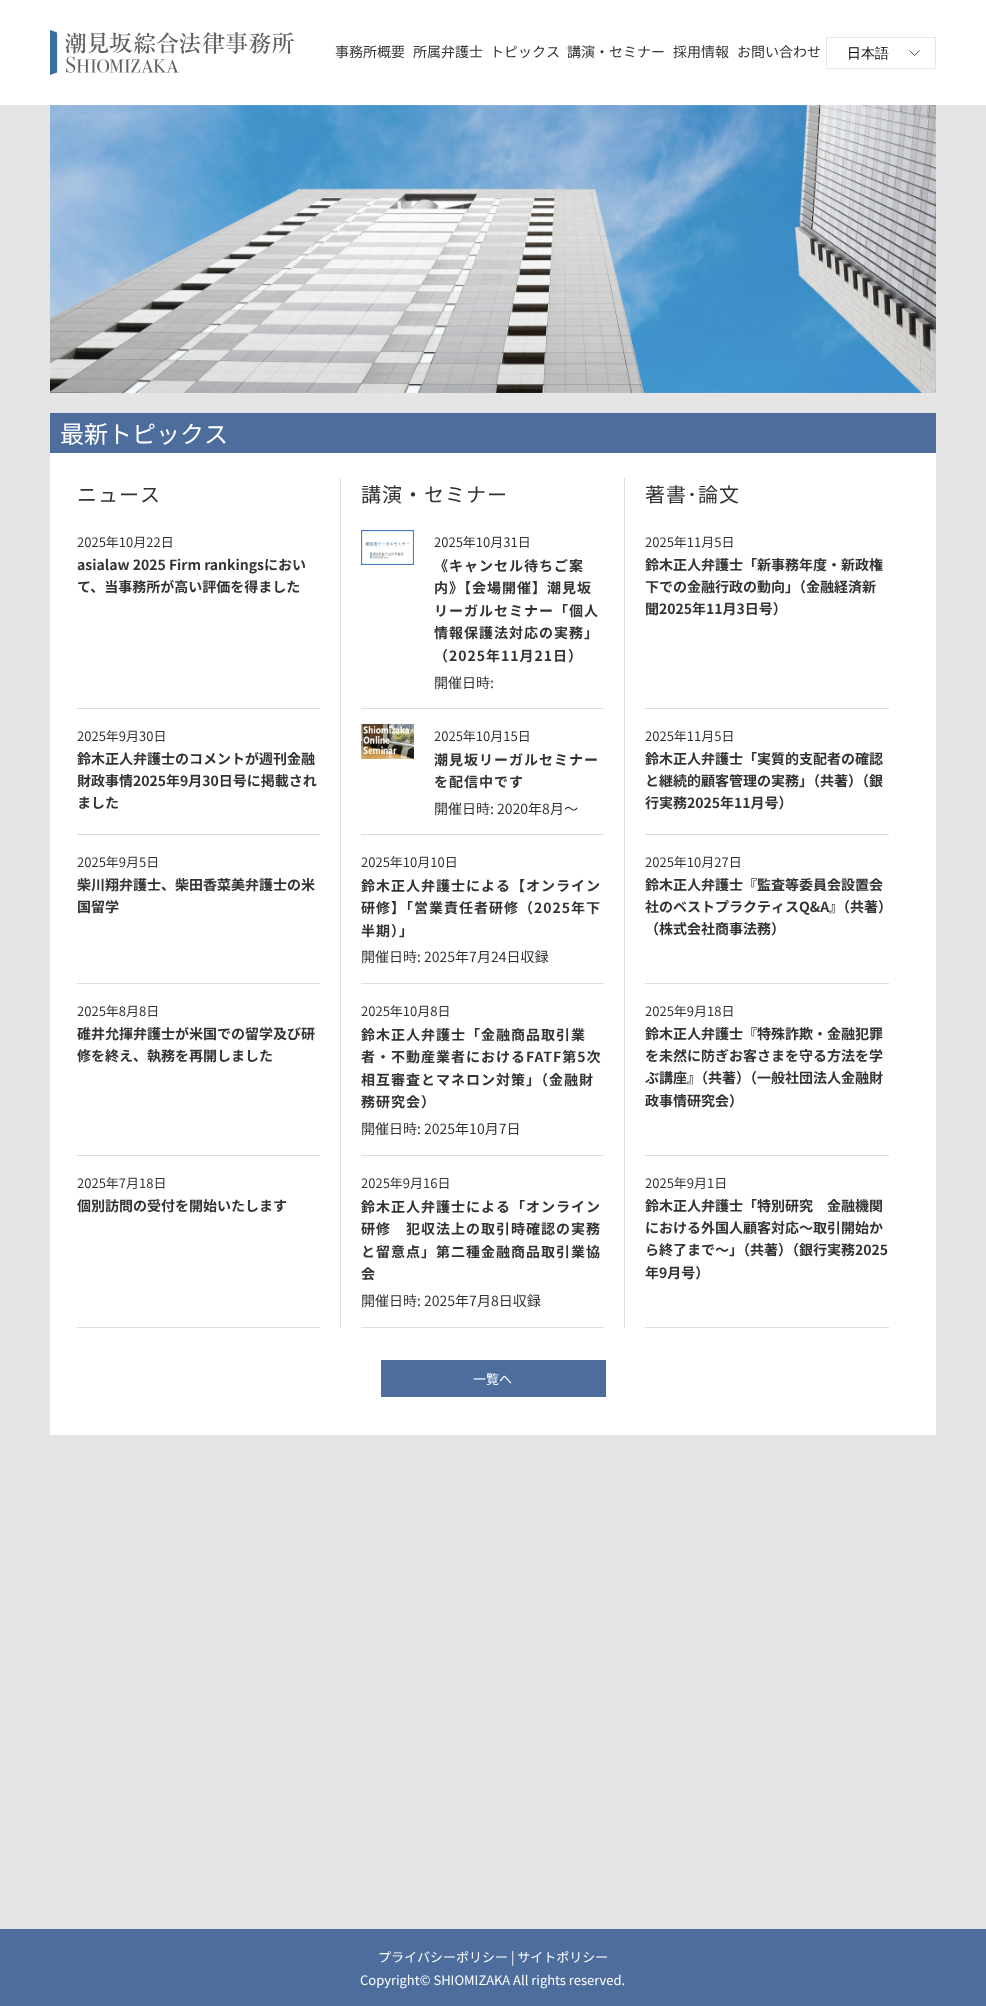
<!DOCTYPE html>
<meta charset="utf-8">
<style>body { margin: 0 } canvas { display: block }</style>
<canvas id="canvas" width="986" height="2006"></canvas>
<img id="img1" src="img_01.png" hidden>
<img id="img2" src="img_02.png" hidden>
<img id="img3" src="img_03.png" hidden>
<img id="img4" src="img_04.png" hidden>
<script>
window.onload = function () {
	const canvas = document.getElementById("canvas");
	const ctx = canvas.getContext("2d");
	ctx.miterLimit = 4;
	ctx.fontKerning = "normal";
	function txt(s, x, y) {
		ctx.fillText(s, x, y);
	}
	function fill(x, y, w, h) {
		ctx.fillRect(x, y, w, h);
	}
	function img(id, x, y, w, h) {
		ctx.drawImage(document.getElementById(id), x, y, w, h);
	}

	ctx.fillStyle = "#E5E5E5";
	fill(0, 0, 986, 2006);
	ctx.fillStyle = "#FFFFFF";
	fill(0, 0, 986, 105);
	img("img1", 50, 30, 244, 45);
	ctx.beginPath();
	ctx.moveTo(909.5, 50.5);
	ctx.lineTo(914.5, 55.5);
	ctx.lineTo(919.5, 50.5);
	ctx.strokeStyle = "#000000";
	ctx.lineWidth = 0.7;
	ctx.stroke();
	ctx.strokeStyle = "#E7E8EC";
	ctx.lineWidth = 1;
	ctx.strokeRect(826.5, 37.5, 109, 31);
	img("img2", 50, 105, 886, 288);
	ctx.fillStyle = "#4D6E9C";
	fill(50, 413, 886, 40);
	ctx.fillStyle = "#FFFFFF";
	fill(50, 453, 886, 982);
	ctx.fillStyle = "#DDDDDD";
	fill(340, 478, 1, 850);
	fill(77, 708, 243, 1);
	fill(77, 834, 243, 1);
	fill(77, 983, 243, 1);
	fill(77, 1155, 243, 1);
	fill(77, 1327, 243, 1);
	fill(624, 478, 1, 850);
	fill(361, 708, 243, 1);
	img("img3", 361, 530, 53, 35);
	fill(361, 834, 243, 1);
	img("img4", 361, 724, 53, 35);
	fill(361, 983, 243, 1);
	fill(361, 1155, 243, 1);
	fill(361, 1327, 243, 1);
	fill(645, 708, 244, 1);
	fill(645, 834, 244, 1);
	fill(645, 983, 244, 1);
	fill(645, 1155, 244, 1);
	fill(645, 1327, 244, 1);
	ctx.fillStyle = "#4D6E9C";
	fill(381, 1360, 225, 37);
	fill(0, 1929, 986, 77);
	ctx.font = "14px Noto Sans JP";
	ctx.fillStyle = "#333333";
	txt("事務所概要", 335, 57);
	txt("所属弁護士", 413, 57);
	txt("トピックス", 490, 57);
	txt("講演・セミナー", 567, 57);
	txt("採用情報", 673, 57);
	txt("お問い合わせ", 737, 57);
	ctx.font = "500 14px WenQuanYi Zen Hei";
	ctx.fillStyle = "#000000";
	txt("日本語", 847, 58);
	ctx.font = "24px Noto Sans JP";
	ctx.fillStyle = "#FFFFFF";
	txt("最新トピックス", 60, 443);
	ctx.letterSpacing = "1px";
	ctx.font = "20px Noto Sans JP";
	ctx.fillStyle = "#333333";
	txt("ニュース", 77, 502);
	ctx.letterSpacing = "0px";
	ctx.font = "13px Noto Sans JP";
	txt("2025年10月22日", 77, 547);
	ctx.font = "bold 14px Noto Sans JP";
	txt("asialaw 2025 Firm rankingsにおい", 77, 570);
	txt("て、当事務所が高い評価を得ました", 77, 592);
	ctx.font = "13px Noto Sans JP";
	txt("2025年9月30日", 77, 741);
	ctx.font = "bold 14px Noto Sans JP";
	txt("鈴木正人弁護士のコメントが週刊金融", 77, 764);
	txt("財政事情2025年9月30日号に掲載され", 77, 786);
	txt("ました", 77, 808);
	ctx.font = "13px Noto Sans JP";
	txt("2025年9月5日", 77, 867);
	ctx.font = "bold 14px Noto Sans JP";
	txt("柴川翔弁護士、柴田香菜美弁護士の米", 77, 890);
	txt("国留学", 77, 912);
	ctx.font = "13px Noto Sans JP";
	txt("2025年8月8日", 77, 1016);
	ctx.font = "bold 14px Noto Sans JP";
	txt("碓井允揮弁護士が米国での留学及び研", 77, 1039);
	txt("修を終え、執務を再開しました", 77, 1061);
	ctx.font = "13px Noto Sans JP";
	txt("2025年7月18日", 77, 1188);
	ctx.font = "bold 14px Noto Sans JP";
	txt("個別訪問の受付を開始いたします", 77, 1211);
	ctx.letterSpacing = "1px";
	ctx.font = "20px Noto Sans JP";
	txt("講演・セミナー", 361, 502);
	ctx.letterSpacing = "0px";
	ctx.font = "13px Noto Sans JP";
	txt("2025年10月31日", 434, 547);
	ctx.letterSpacing = "1px";
	ctx.font = "bold 14px Noto Sans JP";
	txt("《キャンセル待ちご案", 434, 571);
	txt("内》【会場開催】潮見坂", 434, 593);
	txt("リーガルセミナー「個人", 434, 616);
	txt("情報保護法対応の実務」", 434, 638);
	txt("（2025年11月21日）", 434, 661);
	ctx.letterSpacing = "0px";
	ctx.font = "14px Noto Sans JP";
	txt("開催日時:", 434, 688);
	ctx.font = "13px Noto Sans JP";
	txt("2025年10月15日", 434, 741);
	ctx.letterSpacing = "1px";
	ctx.font = "bold 14px Noto Sans JP";
	txt("潮見坂リーガルセミナー", 434, 765);
	txt("を配信中です", 434, 787);
	ctx.letterSpacing = "0px";
	ctx.font = "14px Noto Sans JP";
	txt("開催日時: 2020年8月～", 434, 814);
	ctx.font = "13px Noto Sans JP";
	txt("2025年10月10日", 361, 867);
	ctx.letterSpacing = "1px";
	ctx.font = "bold 14px Noto Sans JP";
	txt("鈴木正人弁護士による【オンライン", 361, 891);
	txt("研修】「営業責任者研修（2025年下", 361, 913);
	txt("半期）」", 361, 936);
	ctx.letterSpacing = "0px";
	ctx.font = "14px Noto Sans JP";
	txt("開催日時: 2025年7月24日収録", 361, 962);
	ctx.font = "13px Noto Sans JP";
	txt("2025年10月8日", 361, 1016);
	ctx.letterSpacing = "1px";
	ctx.font = "bold 14px Noto Sans JP";
	txt("鈴木正人弁護士「金融商品取引業", 361, 1040);
	txt("者・不動産業者におけるFATF第5次", 361, 1062);
	txt("相互審査とマネロン対策」（金融財", 361, 1085);
	txt("務研究会）", 361, 1107);
	ctx.letterSpacing = "0px";
	ctx.font = "14px Noto Sans JP";
	txt("開催日時: 2025年10月7日", 361, 1134);
	ctx.font = "13px Noto Sans JP";
	txt("2025年9月16日", 361, 1188);
	ctx.letterSpacing = "1px";
	ctx.font = "bold 14px Noto Sans JP";
	txt("鈴木正人弁護士による「オンライン", 361, 1212);
	txt("研修　犯収法上の取引時確認の実務", 361, 1234);
	txt("と留意点」第二種金融商品取引業協", 361, 1257);
	txt("会", 361, 1279);
	ctx.letterSpacing = "0px";
	ctx.font = "14px Noto Sans JP";
	txt("開催日時: 2025年7月8日収録", 361, 1306);
	ctx.letterSpacing = "1px";
	ctx.font = "20px Noto Sans JP";
	txt("著書･論文", 645, 502);
	ctx.letterSpacing = "0px";
	ctx.font = "13px Noto Sans JP";
	txt("2025年11月5日", 645, 547);
	ctx.font = "bold 14px Noto Sans JP";
	txt("鈴木正人弁護士「新事務年度・新政権", 645, 570);
	txt("下での金融行政の動向」（金融経済新", 645, 592);
	txt("聞2025年11月3日号）", 645, 614);
	ctx.font = "13px Noto Sans JP";
	txt("2025年11月5日", 645, 741);
	ctx.font = "bold 14px Noto Sans JP";
	txt("鈴木正人弁護士「実質的支配者の確認", 645, 764);
	txt("と継続的顧客管理の実務」（共著）（銀", 645, 786);
	txt("行実務2025年11月号）", 645, 808);
	ctx.font = "13px Noto Sans JP";
	txt("2025年10月27日", 645, 867);
	ctx.font = "bold 14px Noto Sans JP";
	txt("鈴木正人弁護士『監査等委員会設置会", 645, 890);
	txt("社のベストプラクティスQ&A』（共著）", 645, 912);
	txt("（株式会社商事法務）", 645, 934);
	ctx.font = "13px Noto Sans JP";
	txt("2025年9月18日", 645, 1016);
	ctx.font = "bold 14px Noto Sans JP";
	txt("鈴木正人弁護士『特殊詐欺・金融犯罪", 645, 1039);
	txt("を未然に防ぎお客さまを守る方法を学", 645, 1061);
	txt("ぶ講座』（共著）（一般社団法人金融財", 645, 1083);
	txt("政事情研究会）", 645, 1106);
	ctx.font = "13px Noto Sans JP";
	txt("2025年9月1日", 645, 1188);
	ctx.font = "bold 14px Noto Sans JP";
	txt("鈴木正人弁護士「特別研究　金融機関", 645, 1211);
	txt("における外国人顧客対応～取引開始か", 645, 1233);
	txt("ら終了まで～」（共著）（銀行実務2025", 645, 1255);
	txt("年9月号）", 645, 1278);
	ctx.font = "13px Noto Sans JP";
	ctx.fillStyle = "#FFFFFF";
	txt("一覧へ", 473, 1384);
	txt("プライバシーポリシー | サイトポリシー", 378, 1962);
	txt("Copyright© SHIOMIZAKA All rights reserved.", 360, 1985);
};
</script>
